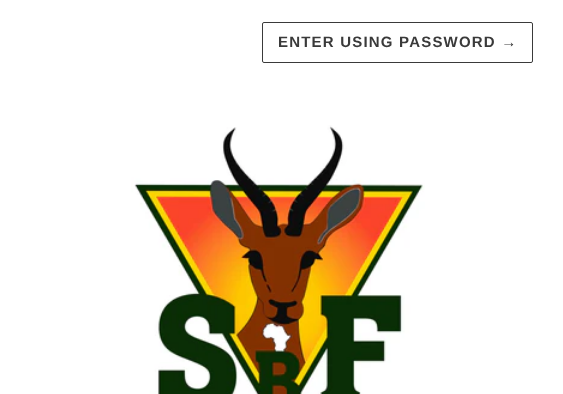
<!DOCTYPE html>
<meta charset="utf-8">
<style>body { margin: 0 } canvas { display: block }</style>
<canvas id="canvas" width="563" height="394"></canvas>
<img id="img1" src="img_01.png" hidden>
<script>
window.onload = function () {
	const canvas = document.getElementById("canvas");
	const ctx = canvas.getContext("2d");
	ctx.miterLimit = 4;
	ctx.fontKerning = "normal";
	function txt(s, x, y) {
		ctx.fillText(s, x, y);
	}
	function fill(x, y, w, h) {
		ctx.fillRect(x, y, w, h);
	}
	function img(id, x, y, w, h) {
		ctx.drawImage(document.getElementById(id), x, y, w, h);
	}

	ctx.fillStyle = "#FFFFFF";
	fill(0, 0, 563, 394);
	ctx.beginPath();
	ctx.roundRect(262.5, 22.5, 270, 40, 1.5);
	ctx.strokeStyle = "#3A3A3A";
	ctx.stroke();
	img("img1", 131, 125, 294, 269);
	ctx.letterSpacing = "1.2px";
	ctx.font = "bold 15px Liberation Sans";
	ctx.fillStyle = "#3A3A3A";
	txt("ENTER USING PASSWORD →", 278, 47);
};
</script>
